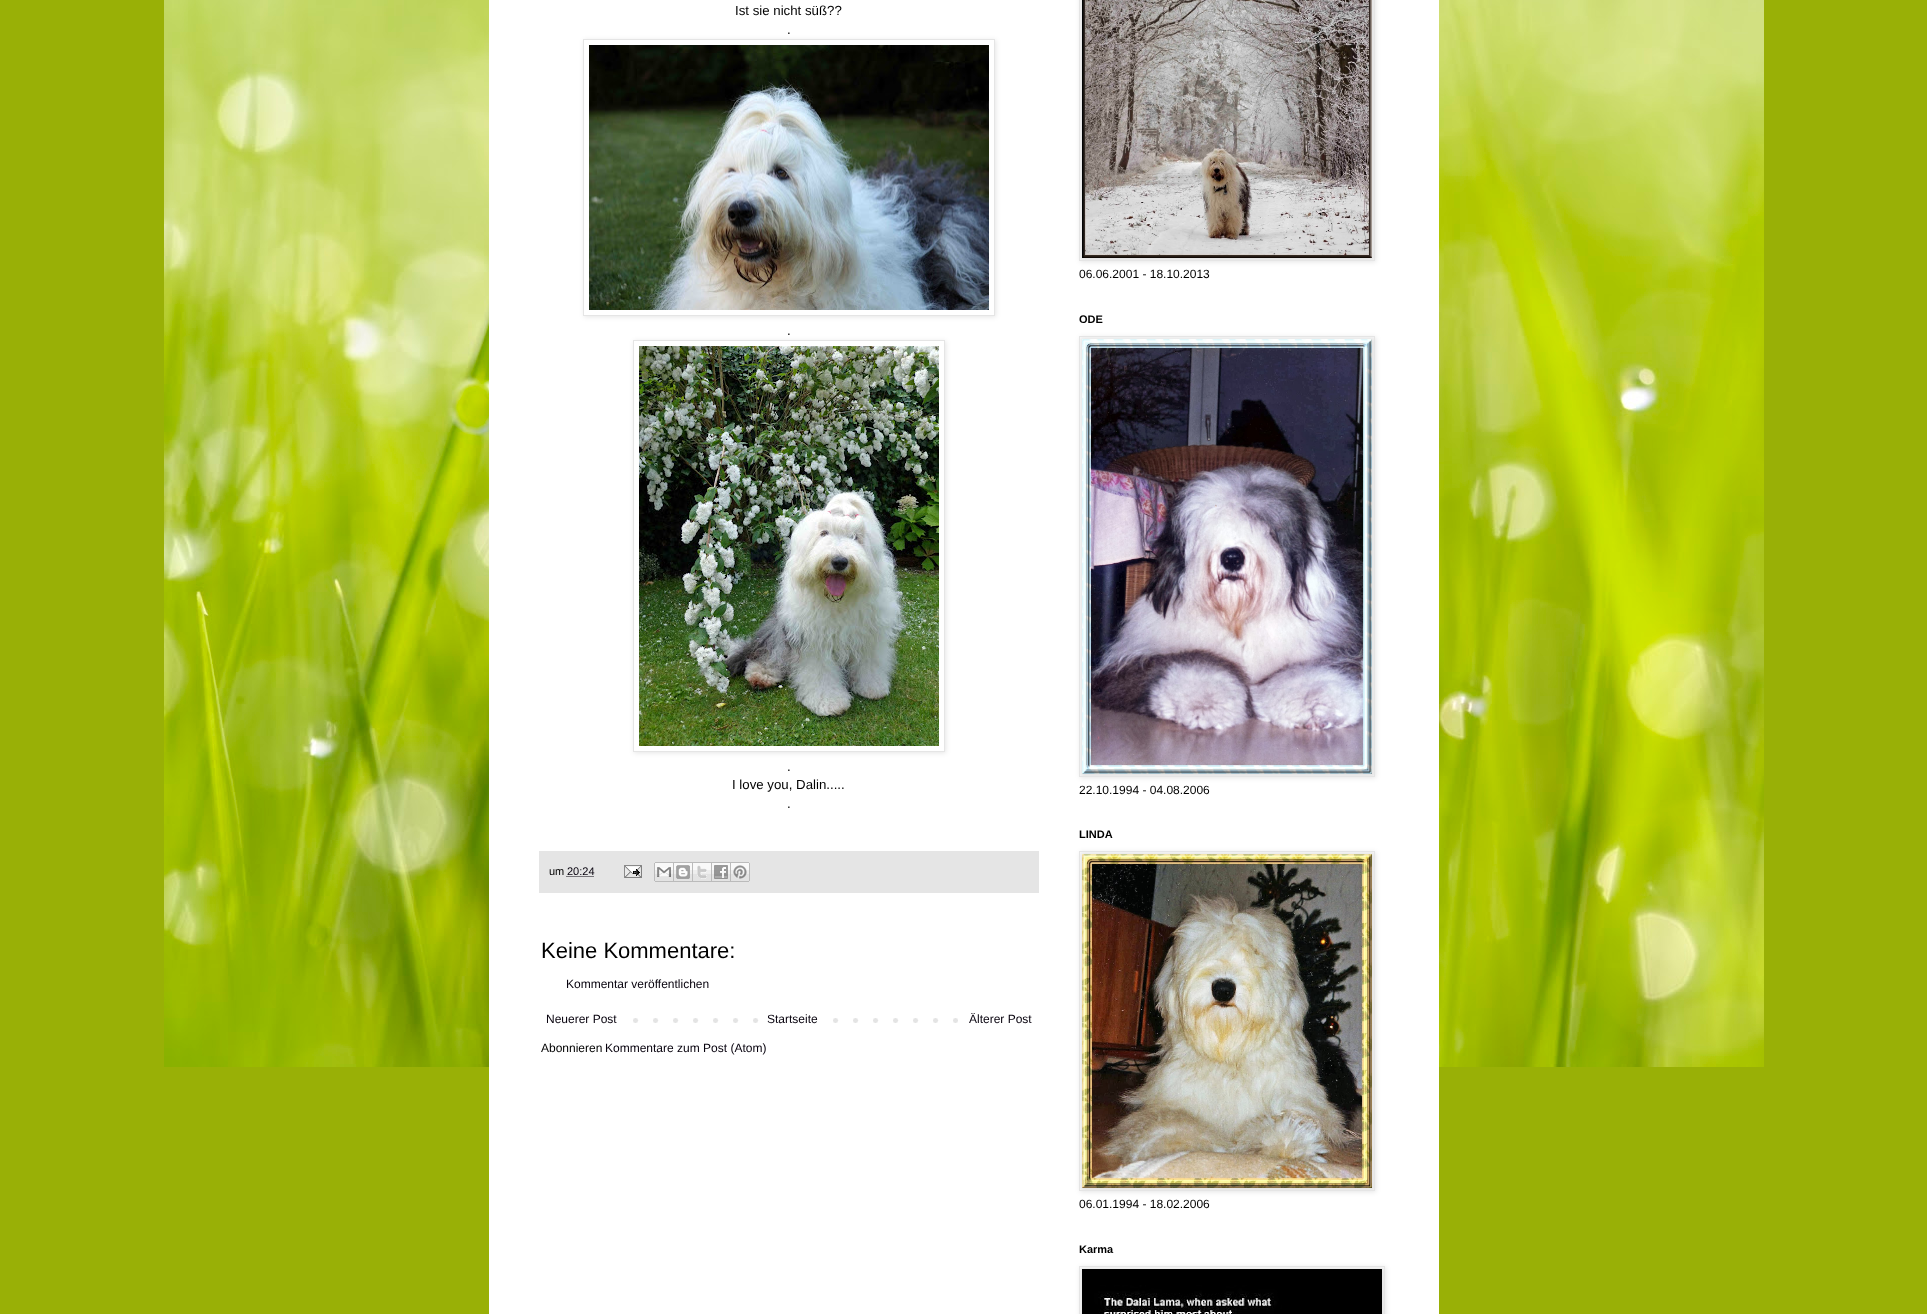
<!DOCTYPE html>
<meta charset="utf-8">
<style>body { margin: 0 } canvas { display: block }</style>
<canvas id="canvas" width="1927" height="1314"></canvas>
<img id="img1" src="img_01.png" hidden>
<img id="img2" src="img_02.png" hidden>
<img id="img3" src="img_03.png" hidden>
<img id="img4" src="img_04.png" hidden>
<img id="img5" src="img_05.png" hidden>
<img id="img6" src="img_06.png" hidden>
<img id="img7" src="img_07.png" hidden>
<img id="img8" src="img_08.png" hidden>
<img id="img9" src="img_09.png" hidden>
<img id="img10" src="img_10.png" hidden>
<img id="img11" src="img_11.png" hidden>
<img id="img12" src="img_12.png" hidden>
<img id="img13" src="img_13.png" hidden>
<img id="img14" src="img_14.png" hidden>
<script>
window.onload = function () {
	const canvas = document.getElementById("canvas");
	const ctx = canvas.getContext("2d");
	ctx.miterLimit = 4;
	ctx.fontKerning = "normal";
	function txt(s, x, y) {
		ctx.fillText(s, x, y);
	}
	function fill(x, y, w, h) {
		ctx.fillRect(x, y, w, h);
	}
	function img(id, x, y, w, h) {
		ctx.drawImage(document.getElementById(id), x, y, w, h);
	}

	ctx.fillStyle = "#99B006";
	fill(0, 0, 1927, 1314);
	img("img1", 164, 0, 1600, 1067);
	ctx.fillStyle = "#FFFFFF";
	fill(489, 0, 950, 1314);
	ctx.save();
	ctx.beginPath();
	ctx.moveTo(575, 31);
	ctx.lineTo(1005, 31);
	ctx.lineTo(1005, 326);
	ctx.lineTo(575, 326);
	ctx.closePath();
	ctx.moveTo(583, 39);
	ctx.lineTo(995, 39);
	ctx.lineTo(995, 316);
	ctx.lineTo(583, 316);
	ctx.closePath();
	ctx.clip("evenodd");
	ctx.fillStyle = "rgba(0, 0, 0, 0.1)";
	ctx.filter = "blur(2.5px)";
	ctx.beginPath();
	ctx.rect(584, 40, 412, 277);
	ctx.fill();
	ctx.filter = "none";
	ctx.restore();
	ctx.strokeStyle = "#E5E5E5";
	ctx.strokeRect(583.5, 39.5, 411, 276);
	img("img2", 589, 45, 400, 265);
	ctx.save();
	ctx.beginPath();
	ctx.moveTo(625, 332);
	ctx.lineTo(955, 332);
	ctx.lineTo(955, 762);
	ctx.lineTo(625, 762);
	ctx.closePath();
	ctx.moveTo(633, 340);
	ctx.lineTo(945, 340);
	ctx.lineTo(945, 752);
	ctx.lineTo(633, 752);
	ctx.closePath();
	ctx.clip("evenodd");
	ctx.fillStyle = "rgba(0, 0, 0, 0.1)";
	ctx.filter = "blur(2.5px)";
	ctx.beginPath();
	ctx.rect(634, 341, 312, 412);
	ctx.fill();
	ctx.filter = "none";
	ctx.restore();
	ctx.strokeRect(633.5, 340.5, 311, 411);
	img("img3", 639, 346, 300, 400);
	ctx.fillStyle = "#E5E5E5";
	fill(539, 851, 500, 42);
	ctx.beginPath();
	ctx.moveTo(566.5, 876.5);
	ctx.lineTo(593.5, 876.5);
	ctx.strokeStyle = "#07020D";
	ctx.setLineDash([1, 1]);
	ctx.stroke();
	img("img4", 624, 865, 18, 13);
	img("img5", 654, 862, 20, 20);
	img("img6", 674, 862, 19, 20);
	img("img7", 693, 862, 19, 20);
	img("img8", 712, 862, 19, 20);
	img("img9", 731, 862, 19, 20);
	img("img10", 633, 1018, 325, 5);
	ctx.fillStyle = "#FFFFFF";
	fill(773, 1018, 46, 5);
	ctx.fillStyle = "rgba(0, 0, 0, 0.1)";
	ctx.filter = "blur(2.5px)";
	ctx.beginPath();
	ctx.rect(1080, -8, 296, 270);
	ctx.fill();
	ctx.filter = "none";
	ctx.strokeStyle = "#E5E5E5";
	ctx.setLineDash([]);
	ctx.strokeRect(1079.5, -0.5, 295, 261);
	img("img11", 1082, 0, 290, 258);
	ctx.filter = "blur(2.5px)";
	ctx.beginPath();
	ctx.rect(1080, 337, 296, 441);
	ctx.fill();
	ctx.filter = "none";
	ctx.strokeRect(1079.5, 336.5, 295, 440);
	img("img12", 1082, 339, 290, 435);
	ctx.filter = "blur(2.5px)";
	ctx.beginPath();
	ctx.rect(1080, 852, 296, 340);
	ctx.fill();
	ctx.filter = "none";
	ctx.strokeRect(1079.5, 851.5, 295, 339);
	img("img13", 1082, 854, 290, 334);
	ctx.filter = "blur(2.5px)";
	ctx.beginPath();
	ctx.rect(1080, 1267, 306, 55);
	ctx.fill();
	ctx.filter = "none";
	ctx.strokeRect(1079.5, 1266.5, 305, 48);
	img("img14", 1082, 1269, 300, 45);
	ctx.font = "13.25px Liberation Sans";
	ctx.fillStyle = "#000000";
	txt("Ist sie nicht süß??", 735, 15);
	txt(".", 787, 34);
	txt(".", 787, 335);
	txt(".", 787, 771);
	txt("I love you, Dalin.....", 732, 789);
	txt(".", 787, 808);
	ctx.font = "11px Liberation Sans";
	txt("um", 549, 875);
	ctx.fillStyle = "#07020D";
	txt("20:24", 567, 875);
	ctx.font = "22px Liberation Sans";
	ctx.fillStyle = "#000000";
	txt("Keine Kommentare:", 541, 958);
	ctx.font = "12px Liberation Sans";
	ctx.fillStyle = "#07020D";
	txt("Kommentar veröffentlichen", 566, 988);
	txt("Neuerer Post", 546, 1023);
	txt("Startseite", 767, 1023);
	txt("Älterer Post", 969, 1023);
	ctx.fillStyle = "#000000";
	txt("Abonnieren", 541, 1052);
	ctx.fillStyle = "#07020D";
	txt("Kommentare zum Post (Atom)", 605, 1052);
	ctx.fillStyle = "#000000";
	txt("06.06.2001 - 18.10.2013", 1079, 278);
	ctx.font = "bold 11px Liberation Sans";
	txt("ODE", 1079, 323);
	ctx.font = "12px Liberation Sans";
	txt("22.10.1994 - 04.08.2006", 1079, 794);
	ctx.font = "bold 11px Liberation Sans";
	txt("LINDA", 1079, 838);
	ctx.font = "12px Liberation Sans";
	txt("06.01.1994 - 18.02.2006", 1079, 1208);
	ctx.font = "bold 11px Liberation Sans";
	txt("Karma", 1079, 1253);
};
</script>
